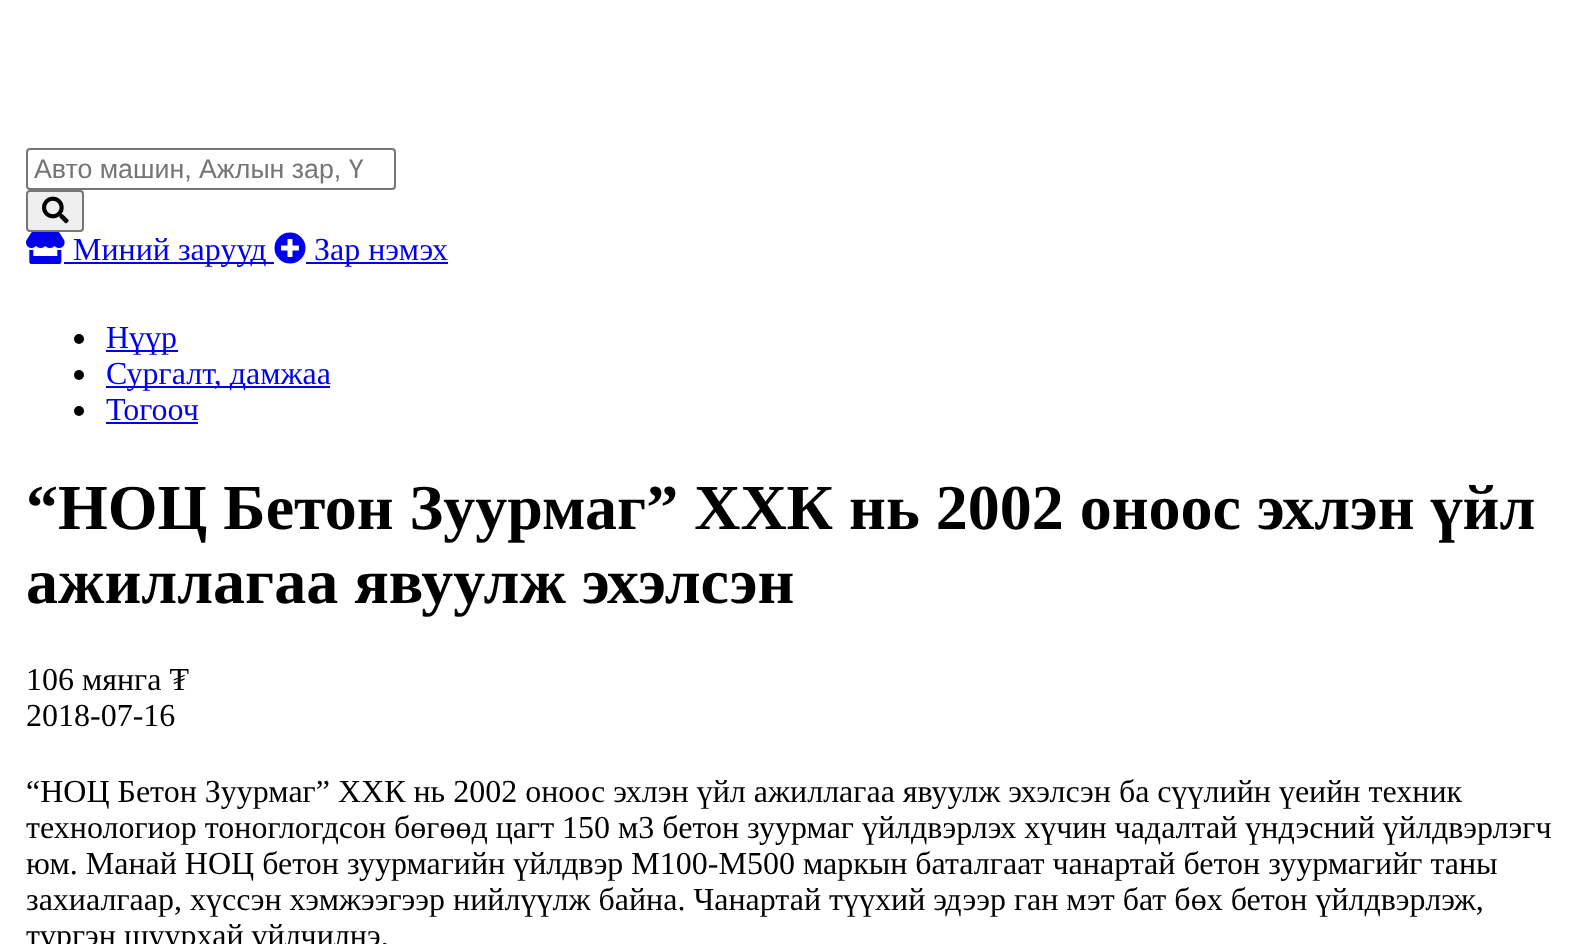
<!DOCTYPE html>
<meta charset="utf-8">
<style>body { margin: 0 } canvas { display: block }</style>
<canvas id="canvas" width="1587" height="944"></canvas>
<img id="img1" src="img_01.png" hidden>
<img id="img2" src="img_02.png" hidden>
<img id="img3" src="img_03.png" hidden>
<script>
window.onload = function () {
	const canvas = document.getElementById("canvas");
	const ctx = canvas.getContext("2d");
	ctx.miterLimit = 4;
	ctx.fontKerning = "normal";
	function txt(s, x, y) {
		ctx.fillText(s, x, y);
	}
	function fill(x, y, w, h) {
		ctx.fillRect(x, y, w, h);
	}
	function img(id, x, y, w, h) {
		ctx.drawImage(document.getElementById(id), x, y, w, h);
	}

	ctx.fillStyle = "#FFFFFF";
	fill(0, 0, 1587, 944);
	ctx.beginPath();
	ctx.roundRect(27, 149, 368, 40, 3);
	ctx.strokeStyle = "#767676";
	ctx.lineWidth = 2;
	ctx.stroke();
	ctx.fillStyle = "#EFEFEF";
	ctx.beginPath();
	ctx.roundRect(27, 191, 56, 40, 3);
	ctx.fill();
	ctx.stroke();
	img("img1", 42, 196, 27, 28);
	img("img2", 26, 232, 39, 32);
	ctx.fillStyle = "#0000EE";
	fill(64, 262, 210, 2);
	img("img3", 274, 232, 32, 32);
	fill(306, 262, 142, 2);
	ctx.fillStyle = "#000000";
	ctx.beginPath();
	ctx.arc(79, 339, 5, 0, Math.PI * 2);
	ctx.fill();
	ctx.fillStyle = "#0000EE";
	fill(106, 350, 72, 2);
	ctx.fillStyle = "#000000";
	ctx.beginPath();
	ctx.arc(79, 375, 5, 0, Math.PI * 2);
	ctx.fill();
	ctx.fillStyle = "#0000EE";
	fill(106, 386, 224, 2);
	ctx.fillStyle = "#000000";
	ctx.beginPath();
	ctx.arc(79, 411, 5, 0, Math.PI * 2);
	ctx.fill();
	ctx.fillStyle = "#0000EE";
	fill(106, 422, 92, 2);
	ctx.font = "26.75px Liberation Sans";
	ctx.fillStyle = "#757575";
	txt("Авто машин, Ажлын зар, Ү", 34, 178);
	ctx.font = "32px Liberation Serif";
	ctx.fillStyle = "#0000EE";
	txt("Миний зарууд", 73, 260);
	txt("Зар нэмэх", 314, 260);
	txt("Нүүр", 106, 348);
	txt("Сургалт, дамжаа", 106, 384);
	txt("Тогооч", 106, 420);
	ctx.font = "bold 64px Liberation Serif";
	ctx.fillStyle = "#000000";
	txt("“НОЦ Бетон Зуурмаг” ХХК нь 2002 оноос эхлэн үйл", 26, 529);
	txt("ажиллагаа явуулж эхэлсэн", 26, 603);
	ctx.font = "32px Liberation Serif";
	txt("106 мянга ₮", 26, 690);
	txt("2018-07-16", 26, 726);
	txt("“НОЦ Бетон Зуурмаг” ХХК нь 2002 оноос эхлэн үйл ажиллагаа явуулж эхэлсэн ба сүүлийн үеийн техник", 26, 802);
	txt("технологиор тоноглогдсон бөгөөд цагт 150 м3 бетон зуурмаг үйлдвэрлэх хүчин чадалтай үндэсний үйлдвэрлэгч", 26, 838);
	txt("юм. Манай НОЦ бетон зуурмагийн үйлдвэр M100-M500 маркын баталгаат чанартай бетон зуурмагийг таны", 26, 874);
	txt("захиалгаар, хүссэн хэмжээгээр нийлүүлж байна. Чанартай түүхий эдээр ган мэт бат бөх бетон үйлдвэрлэж,", 26, 910);
	txt("түргэн шуурхай үйлчилнэ.", 26, 946);
};
</script>
